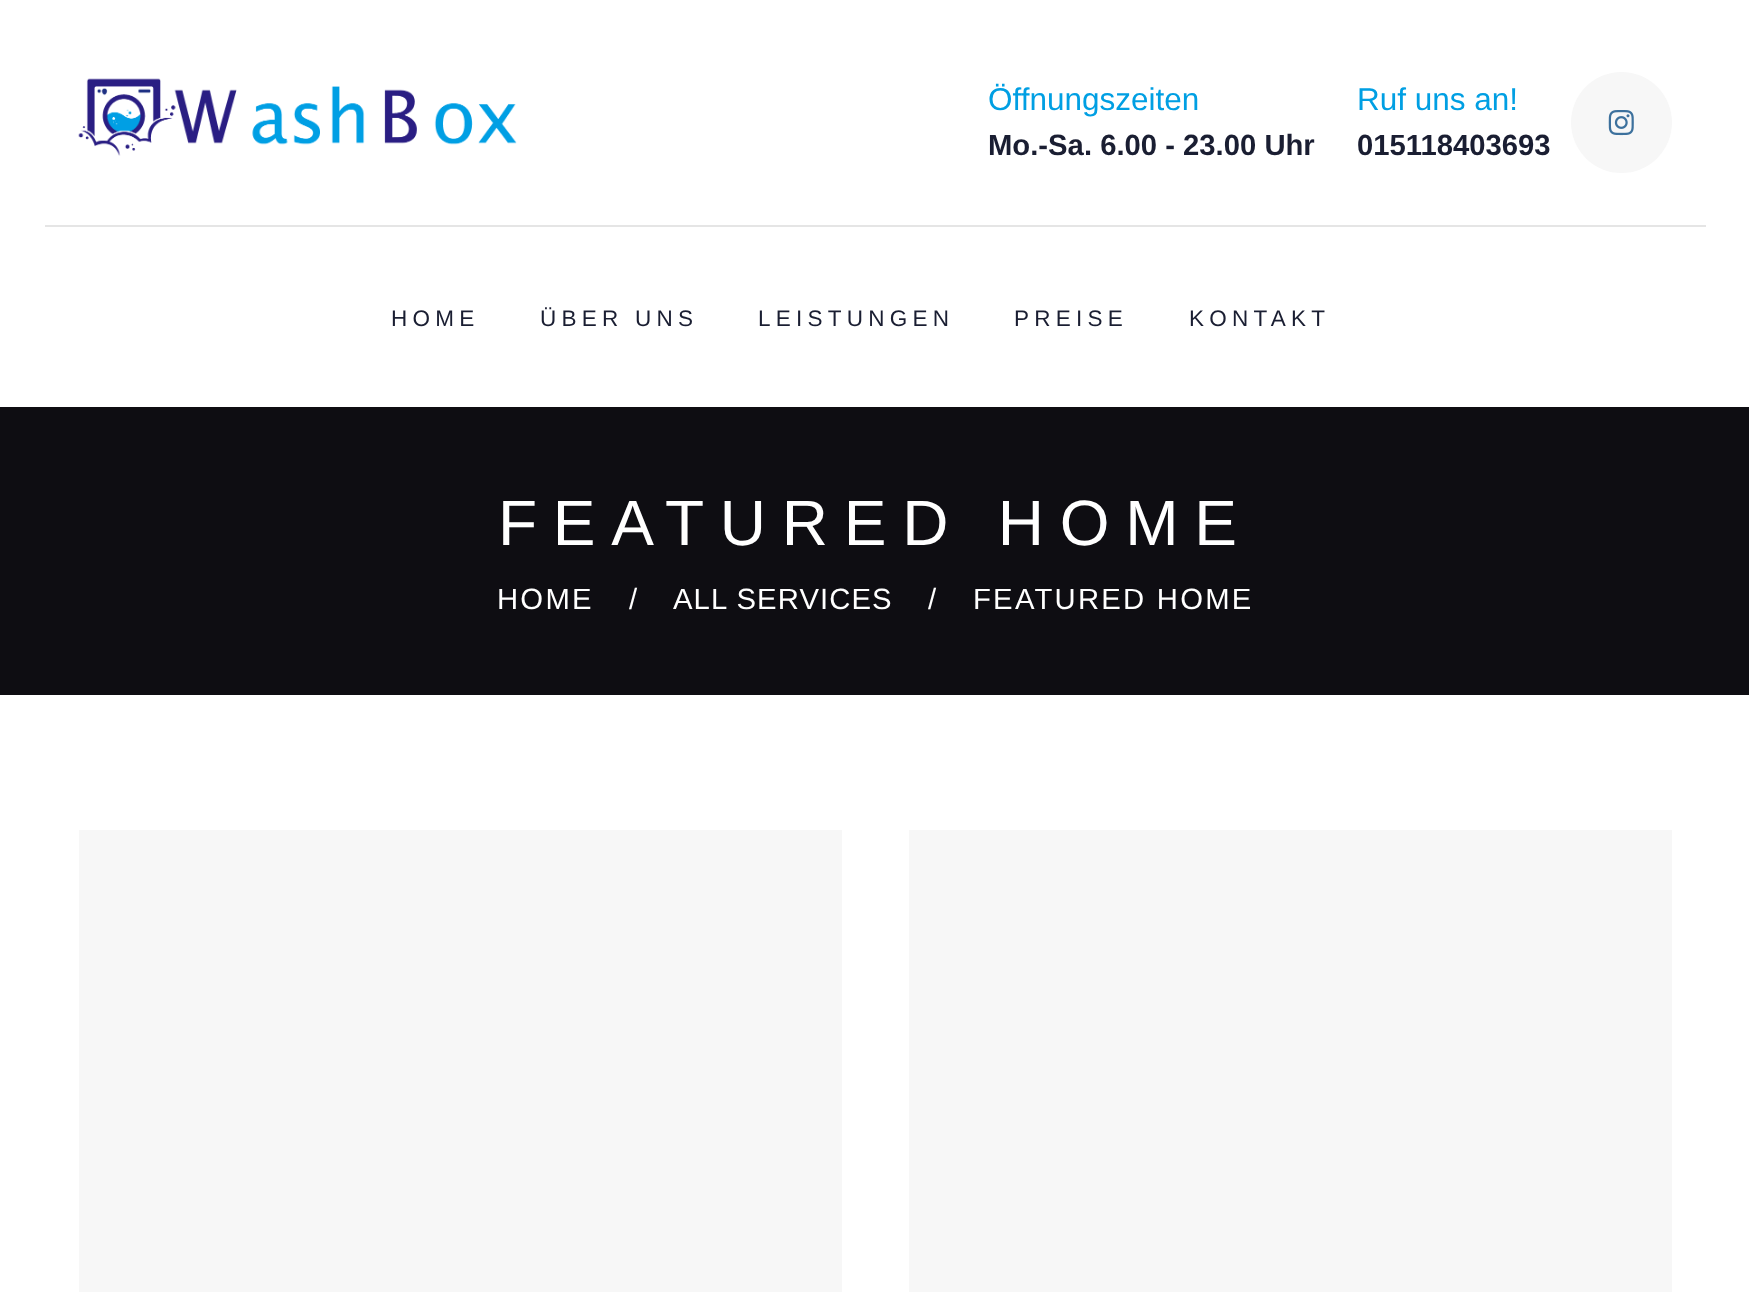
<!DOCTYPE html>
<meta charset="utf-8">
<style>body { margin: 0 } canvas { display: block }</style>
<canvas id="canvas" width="1749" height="1292"></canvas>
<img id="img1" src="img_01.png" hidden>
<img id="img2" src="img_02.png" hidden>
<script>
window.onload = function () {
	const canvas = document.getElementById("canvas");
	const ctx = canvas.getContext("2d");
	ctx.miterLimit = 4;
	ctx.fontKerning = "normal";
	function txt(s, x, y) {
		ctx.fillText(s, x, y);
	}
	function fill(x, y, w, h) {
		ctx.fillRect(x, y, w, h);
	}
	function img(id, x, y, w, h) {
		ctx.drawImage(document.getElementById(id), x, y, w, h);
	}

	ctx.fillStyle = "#FFFFFF";
	fill(0, 0, 1749, 1292);
	ctx.fillStyle = "#E5E5E5";
	fill(45, 225, 1661, 2);
	img("img1", 78, 78, 439, 78);
	ctx.fillStyle = "#F7F7F7";
	ctx.beginPath();
	ctx.arc(1621.5, 122.5, 50.5, 0, Math.PI * 2);
	ctx.fill();
	img("img2", 1608, 110, 26, 26);
	ctx.fillStyle = "#0E0D12";
	fill(0, 407, 1749, 288);
	ctx.fillStyle = "#F7F7F7";
	fill(79, 830, 763, 462);
	fill(909, 830, 763, 462);
	ctx.font = "31.5px Liberation Sans";
	ctx.fillStyle = "#009FE3";
	txt("Öffnungszeiten", 988, 110);
	ctx.font = "bold 29.25px Liberation Sans";
	ctx.fillStyle = "#1A1E32";
	txt("Mo.-Sa. 6.00 - 23.00 Uhr", 988, 155);
	ctx.font = "31.5px Liberation Sans";
	ctx.fillStyle = "#009FE3";
	txt("Ruf uns an!", 1357, 110);
	ctx.font = "bold 29.25px Liberation Sans";
	ctx.fillStyle = "#1A1E32";
	txt("015118403693", 1357, 155);
	ctx.letterSpacing = "5.25px";
	ctx.font = "22.5px Liberation Sans";
	txt("HOME", 391, 326);
	txt("ÜBER UNS", 540, 326);
	txt("LEISTUNGEN", 758, 326);
	txt("PREISE", 1014, 326);
	txt("KONTAKT", 1189, 326);
	ctx.letterSpacing = "15.75px";
	ctx.font = "64px Liberation Sans";
	ctx.fillStyle = "#FFFFFF";
	txt("FEATURED HOME", 498, 545);
	ctx.letterSpacing = "2.25px";
	ctx.font = "29.25px Liberation Sans";
	txt("HOME", 497, 609);
	ctx.letterSpacing = "1.1px";
	txt("/", 629, 609);
	txt("ALL SERVICES", 673, 609);
	txt("/", 928, 609);
	ctx.letterSpacing = "2.25px";
	txt("FEATURED HOME", 973, 609);
};
</script>
